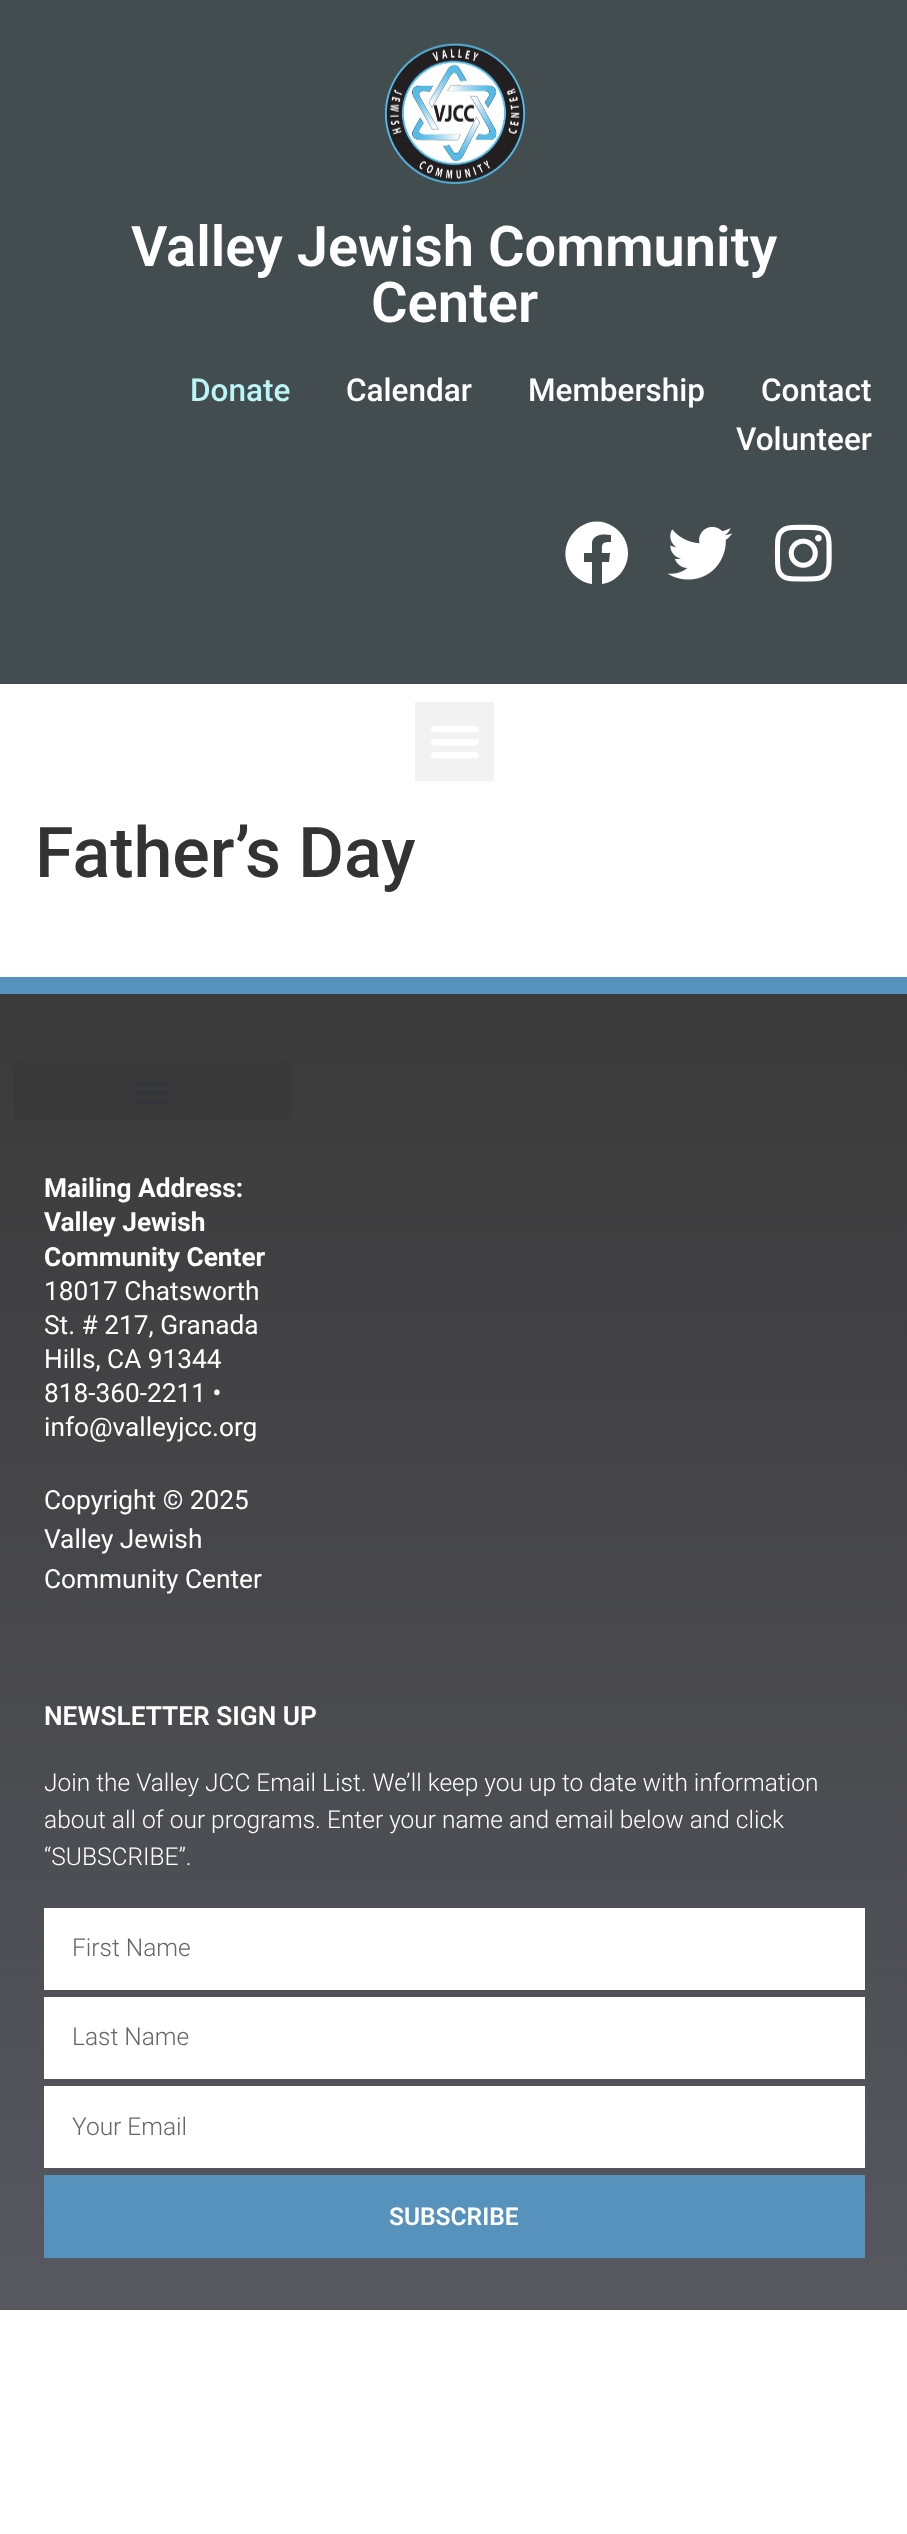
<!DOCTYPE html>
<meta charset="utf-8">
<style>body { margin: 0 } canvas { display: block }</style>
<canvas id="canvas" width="907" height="2534"></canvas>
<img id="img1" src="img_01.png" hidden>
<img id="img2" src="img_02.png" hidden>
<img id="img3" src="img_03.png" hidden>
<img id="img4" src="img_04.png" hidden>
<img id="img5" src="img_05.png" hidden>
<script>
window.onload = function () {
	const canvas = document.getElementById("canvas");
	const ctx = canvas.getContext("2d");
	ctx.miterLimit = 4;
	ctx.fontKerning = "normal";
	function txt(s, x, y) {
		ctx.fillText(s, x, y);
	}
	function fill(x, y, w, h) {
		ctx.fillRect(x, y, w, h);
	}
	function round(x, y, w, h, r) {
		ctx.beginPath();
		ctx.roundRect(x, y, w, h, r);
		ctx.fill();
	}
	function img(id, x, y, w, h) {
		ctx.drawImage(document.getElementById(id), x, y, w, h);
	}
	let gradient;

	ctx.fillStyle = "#FFFFFF";
	fill(0, 0, 907, 2534);
	ctx.fillStyle = "#434D4F";
	fill(0, 0, 907, 684);
	img("img1", 385, 43, 140, 141);
	ctx.fillStyle = "#FFFFFF";
	ctx.beginPath();
	ctx.moveTo(628, 553);
	ctx.bezierCurveTo(628, 568, 617, 582, 602, 584);
	ctx.lineTo(602, 562);
	ctx.lineTo(609, 562);
	ctx.lineTo(610, 553);
	ctx.lineTo(602, 553);
	ctx.bezierCurveTo(602, 544, 601, 542, 611, 542);
	ctx.lineTo(611, 535);
	ctx.bezierCurveTo(604, 534, 594, 534, 592, 542);
	ctx.lineTo(592, 553);
	ctx.lineTo(584, 553);
	ctx.lineTo(584, 562);
	ctx.lineTo(592, 562);
	ctx.lineTo(592, 584);
	ctx.bezierCurveTo(584, 583, 578, 579, 573, 574);
	ctx.bezierCurveTo(550, 546, 584, 507, 614, 527);
	ctx.bezierCurveTo(623, 533, 628, 543, 628, 553);
	ctx.closePath();
	ctx.fill();
	img("img2", 667, 526, 66, 54);
	img("img3", 774, 524, 58, 58);
	ctx.fillStyle = "#F2F2F2";
	fill(415, 702, 79, 79);
	img("img4", 431, 726, 48, 33);
	gradient = ctx.createLinearGradient(454, 2310, 454, 994);
	gradient.addColorStop(0, "#575860");
	gradient.addColorStop(1, "#3A3A3A");
	ctx.fillStyle = gradient;
	fill(0, 994, 907, 1316);
	ctx.fillStyle = "#5692BC";
	fill(0, 977, 907, 17);
	ctx.fillStyle = "#39393A";
	round(14, 1062, 277, 58, 5);
	img("img5", 135, 1081, 35, 24);
	ctx.fillStyle = "#FFFFFF";
	fill(44, 1908, 821, 82);
	fill(44, 1997, 821, 82);
	fill(44, 2086, 821, 82);
	ctx.fillStyle = "#5692BC";
	fill(44, 2175, 821, 83);
	ctx.font = "600 56px Roboto";
	ctx.fillStyle = "#FFFFFF";
	txt("Valley Jewish Community", 131, 266);
	txt("Center", 371, 322);
	ctx.font = "500 31.5px Roboto";
	ctx.fillStyle = "#BAF6F8";
	txt("Donate", 190, 401);
	ctx.fillStyle = "#FFFFFF";
	txt("Calendar", 346, 401);
	txt("Membership", 528, 401);
	txt("Contact", 761, 401);
	txt("Volunteer", 736, 450);
	ctx.font = "500 70px Roboto";
	ctx.fillStyle = "#333333";
	txt("Father’s Day", 35, 877);
	ctx.font = "bold 26.25px Roboto";
	ctx.fillStyle = "#FFFFFF";
	txt("Mailing Address:", 44, 1197);
	txt("Valley Jewish", 44, 1231);
	txt("Community Center", 44, 1266);
	ctx.font = "26.25px Roboto";
	txt("18017 Chatsworth", 44, 1300);
	txt("St. # 217, Granada", 44, 1334);
	txt("Hills, CA 91344", 44, 1368);
	txt("818-360-2211 •", 44, 1402);
	txt("info@valleyjcc.org", 44, 1436);
	txt("Copyright © 2025", 44, 1509);
	txt("Valley Jewish", 44, 1548);
	txt("Community Center", 44, 1588);
	ctx.font = "600 26.25px Roboto";
	txt("NEWSLETTER SIGN UP", 44, 1725);
	ctx.font = "300 24.5px Roboto";
	txt("Join the Valley JCC Email List. We’ll keep you up to date with information", 44, 1791);
	txt("about all of our programs. Enter your name and email below and click", 44, 1828);
	txt("“SUBSCRIBE”.", 44, 1865);
	ctx.fillStyle = "#666666";
	txt("First Name", 72, 1956);
	txt("Last Name", 72, 2045);
	txt("Your Email", 72, 2135);
	ctx.font = "600 24.5px Roboto";
	ctx.fillStyle = "#FFFFFF";
	txt("SUBSCRIBE", 389, 2225);
};
</script>
